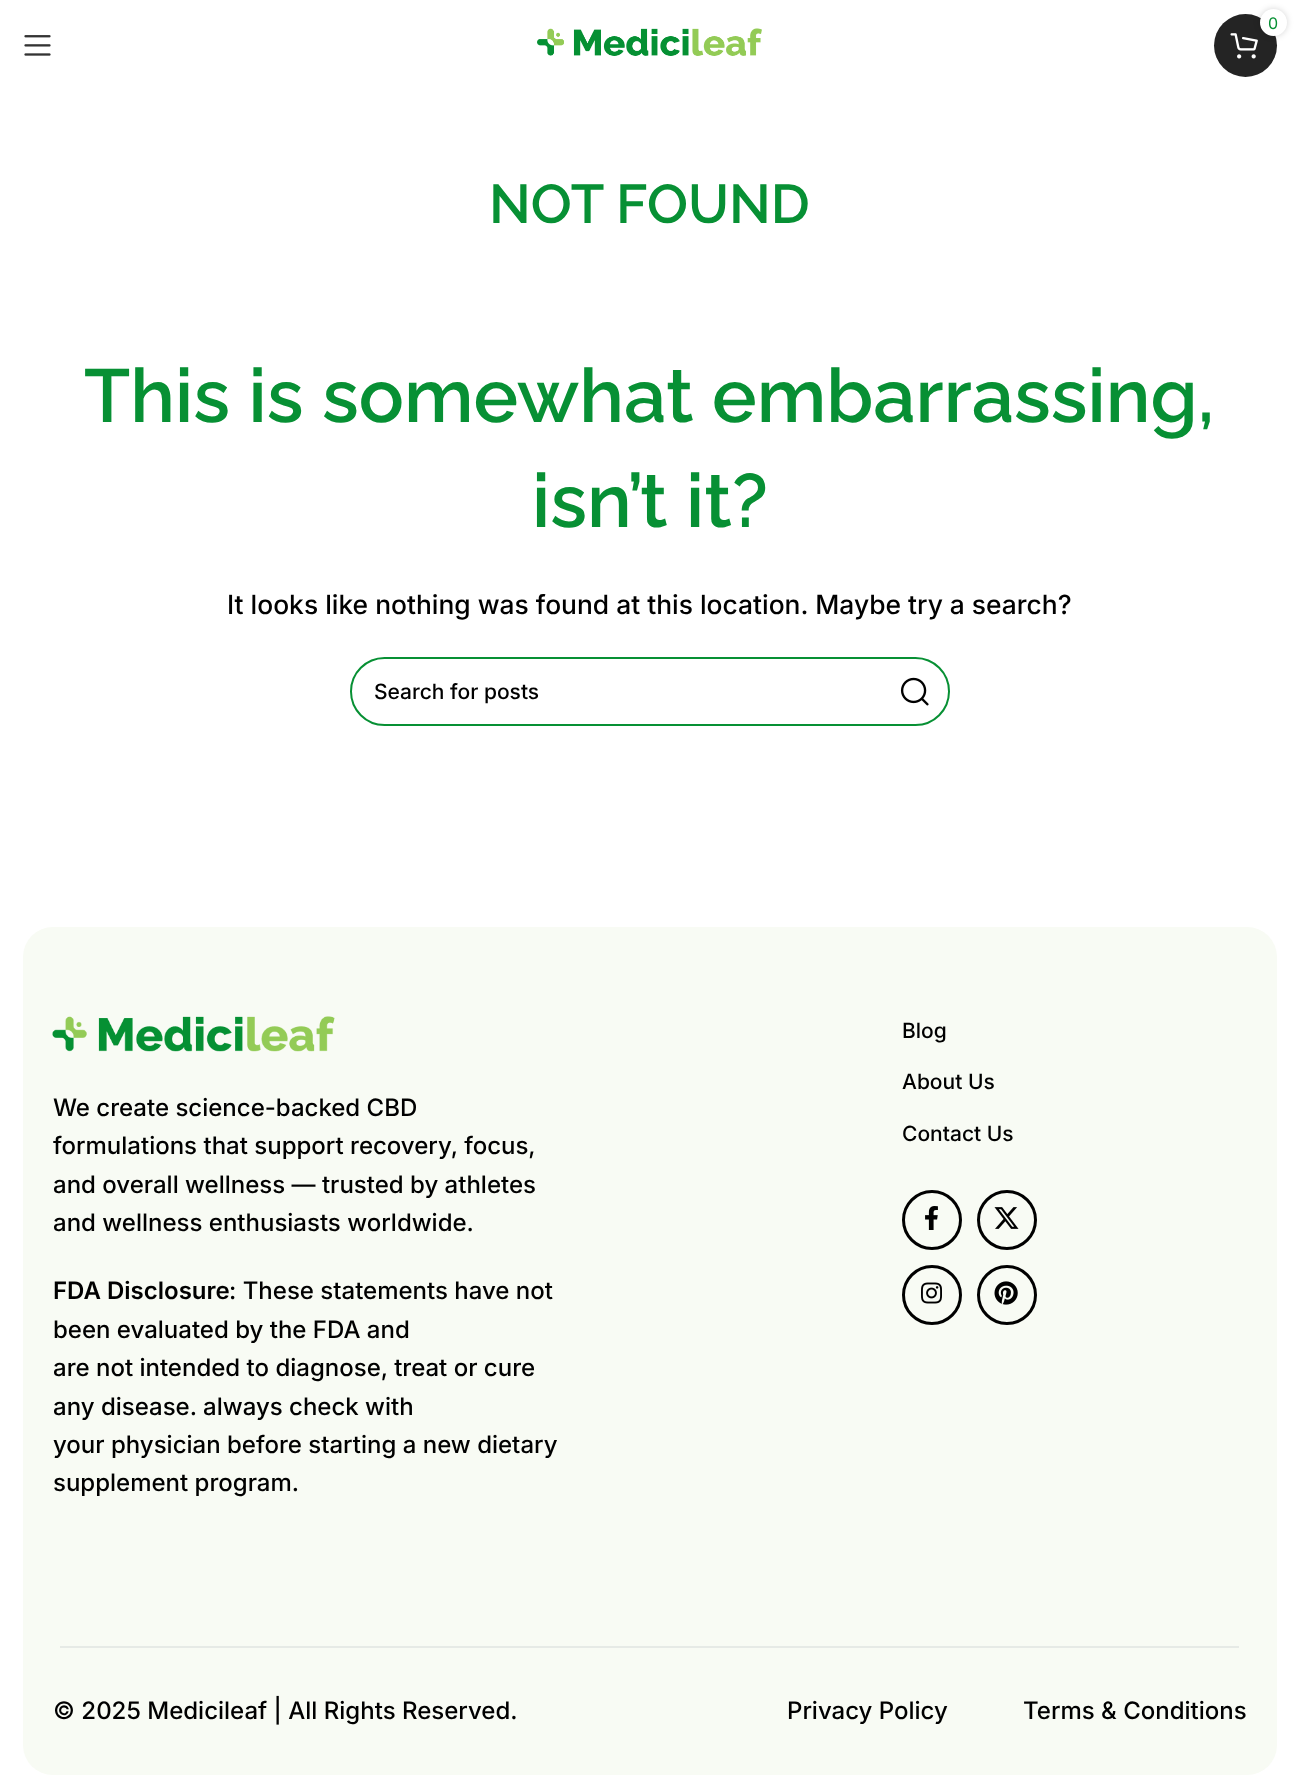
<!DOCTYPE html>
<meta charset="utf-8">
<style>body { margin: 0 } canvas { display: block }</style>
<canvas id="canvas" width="1299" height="1782"></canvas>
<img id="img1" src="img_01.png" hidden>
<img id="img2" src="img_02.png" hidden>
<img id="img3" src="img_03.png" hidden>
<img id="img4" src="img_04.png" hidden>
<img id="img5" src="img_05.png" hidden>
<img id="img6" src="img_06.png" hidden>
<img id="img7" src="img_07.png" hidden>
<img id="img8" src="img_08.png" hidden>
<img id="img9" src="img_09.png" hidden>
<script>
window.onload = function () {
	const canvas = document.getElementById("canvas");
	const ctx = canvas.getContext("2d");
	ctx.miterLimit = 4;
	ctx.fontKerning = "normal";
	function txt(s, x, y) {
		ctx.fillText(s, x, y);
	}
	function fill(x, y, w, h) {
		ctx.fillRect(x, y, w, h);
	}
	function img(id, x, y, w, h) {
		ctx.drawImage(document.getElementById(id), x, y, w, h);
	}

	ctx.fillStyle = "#FFFFFF";
	fill(0, 0, 1299, 1782);
	ctx.fillStyle = "#242424";
	ctx.beginPath();
	ctx.arc(1245.5, 45.5, 31.5, 0, Math.PI * 2);
	ctx.fill();
	img("img1", 1230, 33, 28, 26);
	ctx.fillStyle = "rgba(0, 0, 0, 0.17)";
	ctx.filter = "blur(3px)";
	ctx.beginPath();
	ctx.roundRect(1260, 9, 27, 27, 13.5);
	ctx.fill();
	ctx.filter = "none";
	ctx.fillStyle = "#FFFFFF";
	ctx.beginPath();
	ctx.arc(1273.5, 22.5, 13.5, 0, Math.PI * 2);
	ctx.fill();
	img("img2", 24, 35, 27, 21);
	img("img3", 537, 28, 225, 28);
	ctx.beginPath();
	ctx.roundRect(351, 658, 598, 67, 33.5);
	ctx.strokeStyle = "#079034";
	ctx.lineWidth = 2;
	ctx.stroke();
	img("img4", 900, 677, 29, 29);
	ctx.fillStyle = "#F8FBF4";
	ctx.beginPath();
	ctx.roundRect(23, 927, 1254, 696, [30, 30, 0, 0]);
	ctx.fill();
	ctx.beginPath();
	ctx.arc(932, 1220, 28.5, 0, Math.PI * 2);
	ctx.strokeStyle = "#000000";
	ctx.lineWidth = 3;
	ctx.stroke();
	img("img5", 925, 1206, 13, 24);
	ctx.beginPath();
	ctx.arc(1007, 1220, 28.5, 0, Math.PI * 2);
	ctx.stroke();
	img("img6", 994, 1207, 25, 22);
	ctx.beginPath();
	ctx.arc(932, 1295, 28.5, 0, Math.PI * 2);
	ctx.stroke();
	img("img7", 921, 1282, 21, 22);
	ctx.beginPath();
	ctx.arc(1007, 1295, 28.5, 0, Math.PI * 2);
	ctx.stroke();
	img("img8", 994, 1281, 24, 24);
	img("img9", 52, 1016, 283, 36);
	fill(23, 1623, 1254, 69);
	ctx.fillStyle = "#E6EAE6";
	fill(60, 1646, 1179, 2);
	ctx.fillStyle = "#F8FBF4";
	ctx.beginPath();
	ctx.roundRect(23, 1692, 1254, 83, [0, 0, 30, 30]);
	ctx.fill();
	ctx.font = "16px Inter";
	ctx.fillStyle = "#079034";
	txt("0", 1268, 29);
	ctx.font = "600 54.5px Raleway";
	txt("NOT FOUND", 489, 223);
	ctx.font = "600 75px Raleway";
	txt("This is somewhat embarrassing,", 84, 422);
	txt("isn’t it?", 532, 527);
	ctx.font = "500 26.4px Inter";
	ctx.fillStyle = "#000000";
	txt("It looks like nothing was found at this location. Maybe try a search?", 227, 614);
	ctx.font = "500 21px Inter";
	txt("Search for posts", 374, 699);
	txt("Blog", 902, 1038);
	txt("About Us", 902, 1089);
	txt("Contact Us", 902, 1141);
	ctx.font = "500 24px Inter";
	txt("We create science-backed CBD", 53, 1116);
	txt("formulations that support recovery, focus,", 53, 1154);
	txt("and overall wellness — trusted by athletes", 53, 1193);
	txt("and wellness enthusiasts worldwide.", 53, 1231);
	ctx.font = "600 24px Inter";
	txt("FDA Disclosure", 53, 1299);
	ctx.font = "500 24px Inter";
	txt(": These statements have not", 229, 1299);
	txt("been evaluated by the FDA and", 53, 1338);
	txt("are not intended to diagnose, treat or cure", 53, 1376);
	txt("any disease. always check with", 53, 1415);
	txt("your physician before starting a new dietary", 53, 1453);
	txt("supplement program.", 53, 1491);
	txt("© 2025 Medicileaf | All Rights Reserved.", 53, 1719);
	txt("Privacy Policy", 787, 1719);
	txt("Terms & Conditions", 1023, 1719);
};
</script>
